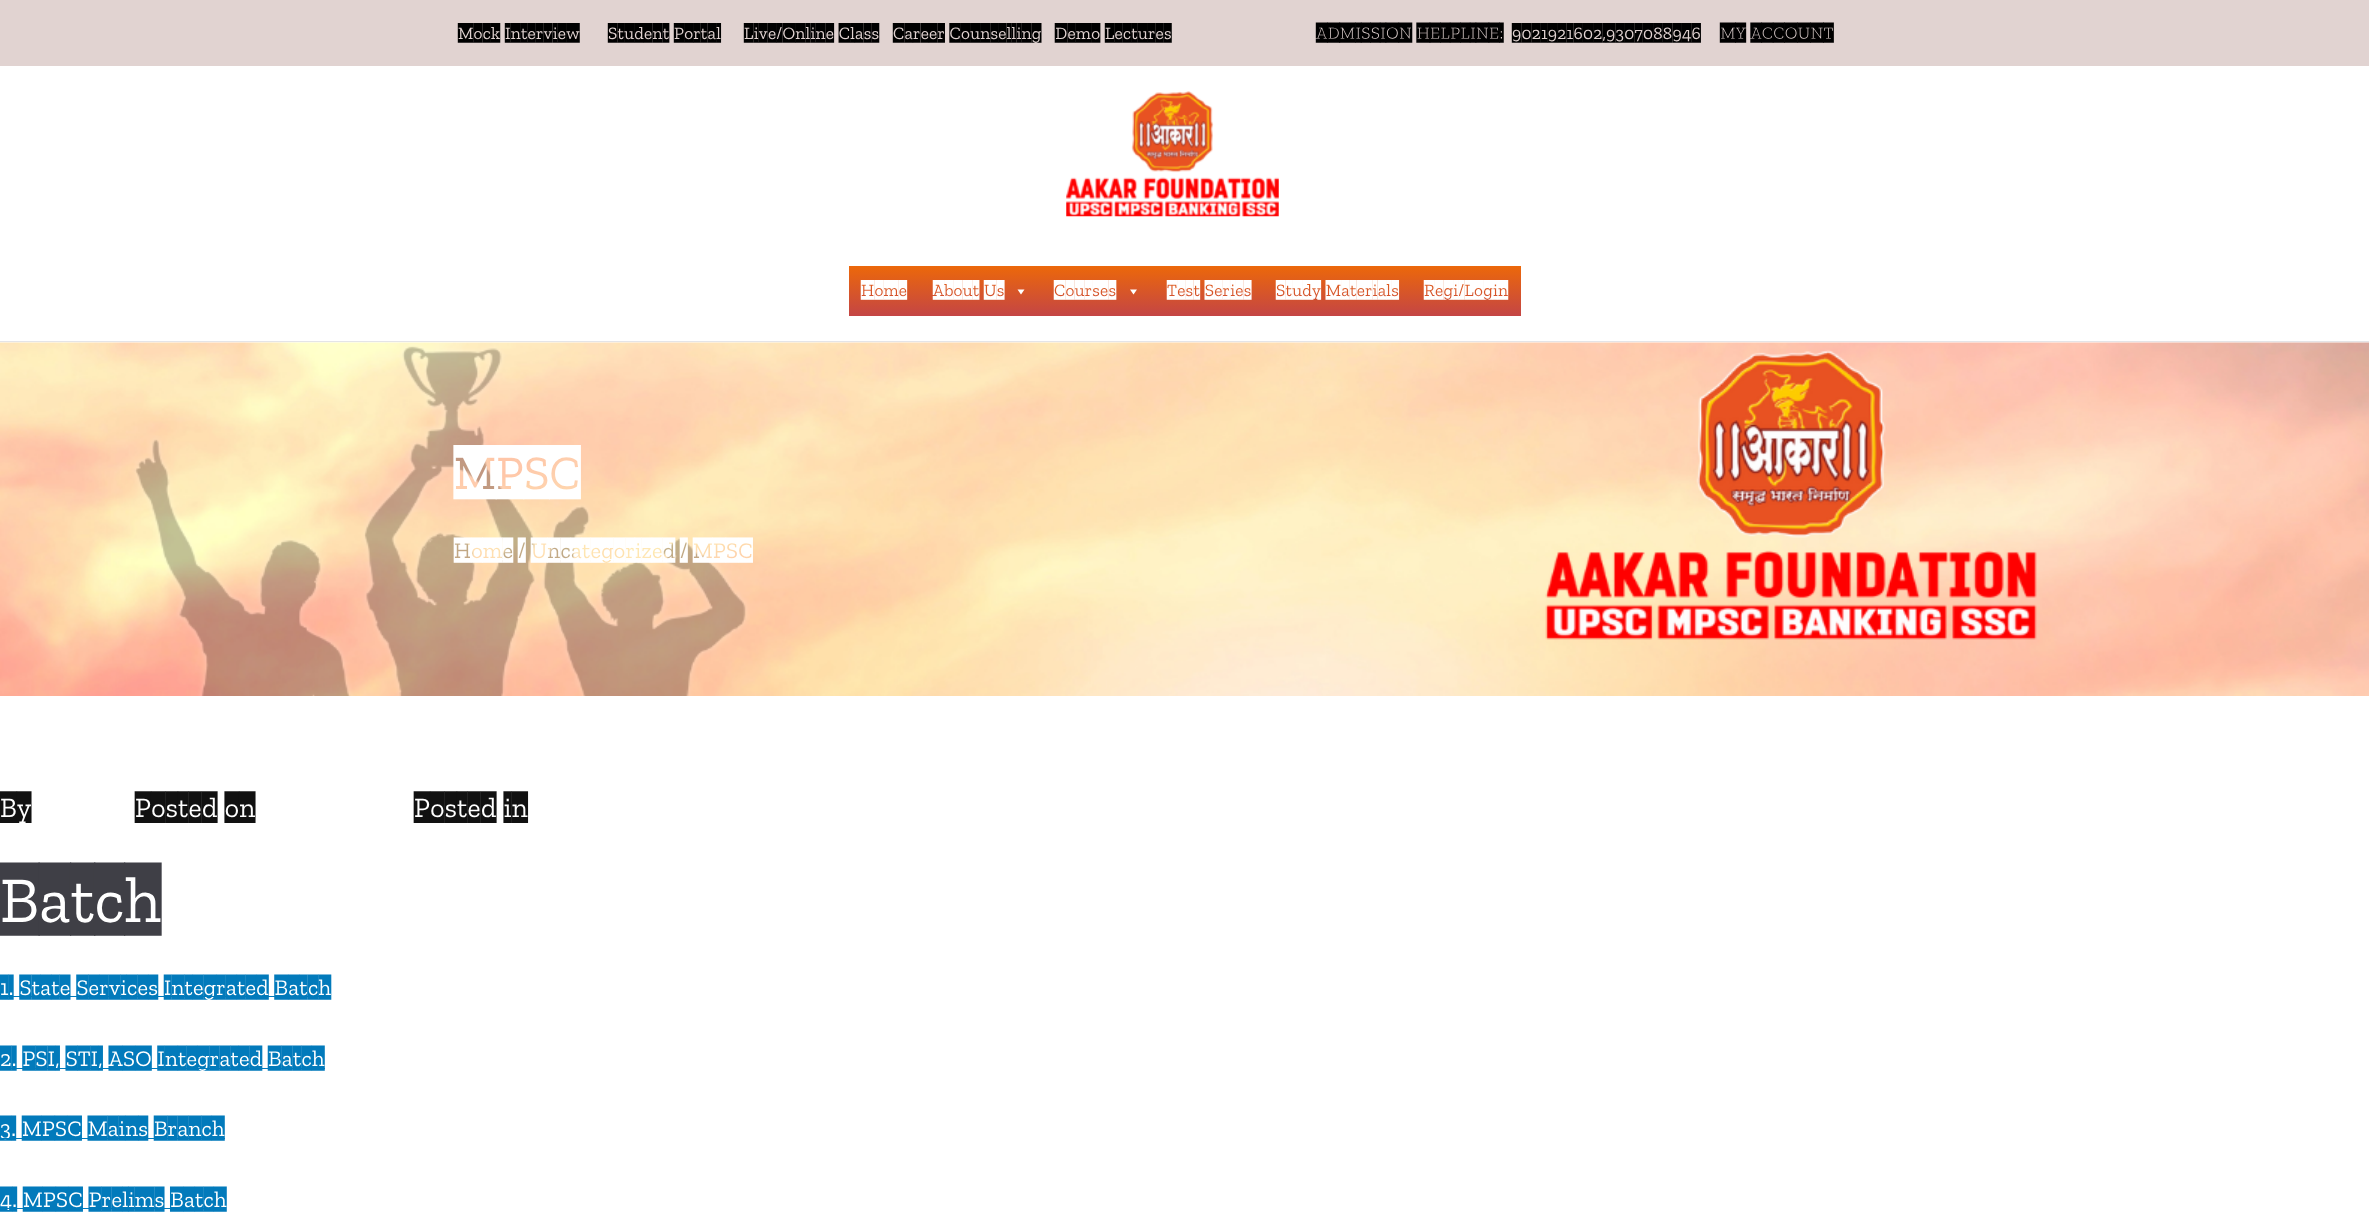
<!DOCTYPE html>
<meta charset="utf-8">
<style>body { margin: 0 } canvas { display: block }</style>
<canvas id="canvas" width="2369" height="1212"></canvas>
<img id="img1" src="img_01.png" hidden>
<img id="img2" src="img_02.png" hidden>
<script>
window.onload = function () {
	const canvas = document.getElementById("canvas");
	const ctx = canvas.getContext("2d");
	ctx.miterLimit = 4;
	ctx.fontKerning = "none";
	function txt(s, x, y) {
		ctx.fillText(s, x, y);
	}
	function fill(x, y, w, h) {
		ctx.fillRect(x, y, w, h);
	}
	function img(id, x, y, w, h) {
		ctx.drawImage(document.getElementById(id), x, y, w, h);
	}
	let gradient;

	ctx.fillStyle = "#FAFAFA";
	fill(0, 0, 2369, 1212);
	ctx.fillStyle = "#E4E4E7";
	fill(0, 341, 2369, 1);
	ctx.fillStyle = "#E1D3D1";
	fill(0, 0, 2369, 66);
	ctx.fillStyle = "#FFFFFF";
	fill(0, 66, 2369, 275);
	img("img1", 1066, 91, 213, 126);
	gradient = ctx.createLinearGradient(1185, 266, 1185, 316);
	gradient.addColorStop(0, "#EC680A");
	gradient.addColorStop(1, "#C44545");
	ctx.fillStyle = gradient;
	fill(849, 266, 672, 50);
	ctx.fillStyle = "#FFFFFF";
	ctx.beginPath();
	ctx.moveTo(1024.5, 289.5);
	ctx.lineTo(1021, 294.5);
	ctx.lineTo(1017.5, 289.5);
	ctx.closePath();
	ctx.fill();
	ctx.beginPath();
	ctx.moveTo(1137, 289.5);
	ctx.lineTo(1133.5, 294.5);
	ctx.lineTo(1130, 289.5);
	ctx.closePath();
	ctx.fill();
	img("img2", 0, 342, 2369, 354);
	fill(454, 559, 59, 1);
	fill(531, 559, 144, 1);
	fill(0, 696, 2369, 516);
	ctx.fillStyle = "#027ABB";
	fill(0, 996, 331, 1);
	fill(0, 1068, 325, 1);
	fill(0, 1138, 225, 1);
	fill(0, 1208, 226, 1);
	ctx.letterSpacing = "0.25px";
	ctx.font = "300 17.5px Zilla Slab Highlight";
	ctx.fillStyle = "#000000";
	txt("Mock Interview", 458, 39);
	txt("Student Portal", 608, 39);
	txt("Live/Online Class", 744, 39);
	txt("Career Counselling", 893, 39);
	txt("Demo Lectures", 1055, 39);
	ctx.font = "bold 17.5px Zilla Slab Highlight";
	txt("ADMISSION HELPLINE:", 1316, 39);
	ctx.font = "300 17.5px Zilla Slab Highlight";
	txt("9021921602,9307088946", 1512, 39);
	ctx.font = "bold 17.5px Zilla Slab Highlight";
	txt("MY ACCOUNT", 1720, 39);
	ctx.font = "300 17.5px Zilla Slab Highlight";
	ctx.fillStyle = "#FFFFFF";
	txt("Home", 861, 296);
	txt("About Us", 933, 296);
	txt("Courses", 1054, 296);
	txt("Test Series", 1167, 296);
	txt("Study Materials", 1276, 296);
	txt("Regi/Login", 1424, 296);
	ctx.font = "300 48px Zilla Slab Highlight";
	txt("MPSC", 454, 489);
	ctx.font = "300 22.5px Zilla Slab Highlight";
	txt("Home", 454, 558);
	txt("/", 518, 558);
	txt("Uncategorized", 531, 558);
	txt("/", 680, 558);
	txt("MPSC", 693, 558);
	ctx.font = "300 28px Zilla Slab Highlight";
	ctx.fillStyle = "#111111";
	txt("By", 0, 817);
	txt("Posted on", 135, 817);
	txt("Posted in", 414, 817);
	ctx.font = "300 65px Zilla Slab Highlight";
	ctx.fillStyle = "#3F3F46";
	txt("Batch", 0, 922);
	ctx.font = "300 22.5px Zilla Slab Highlight";
	ctx.fillStyle = "#027ABB";
	txt("1. State Services Integrated Batch", 0, 995);
	txt("2. PSI, STI, ASO Integrated Batch", 0, 1066);
	txt("3. MPSC Mains Branch", 0, 1136);
	txt("4. MPSC Prelims Batch", 0, 1207);
};
</script>
